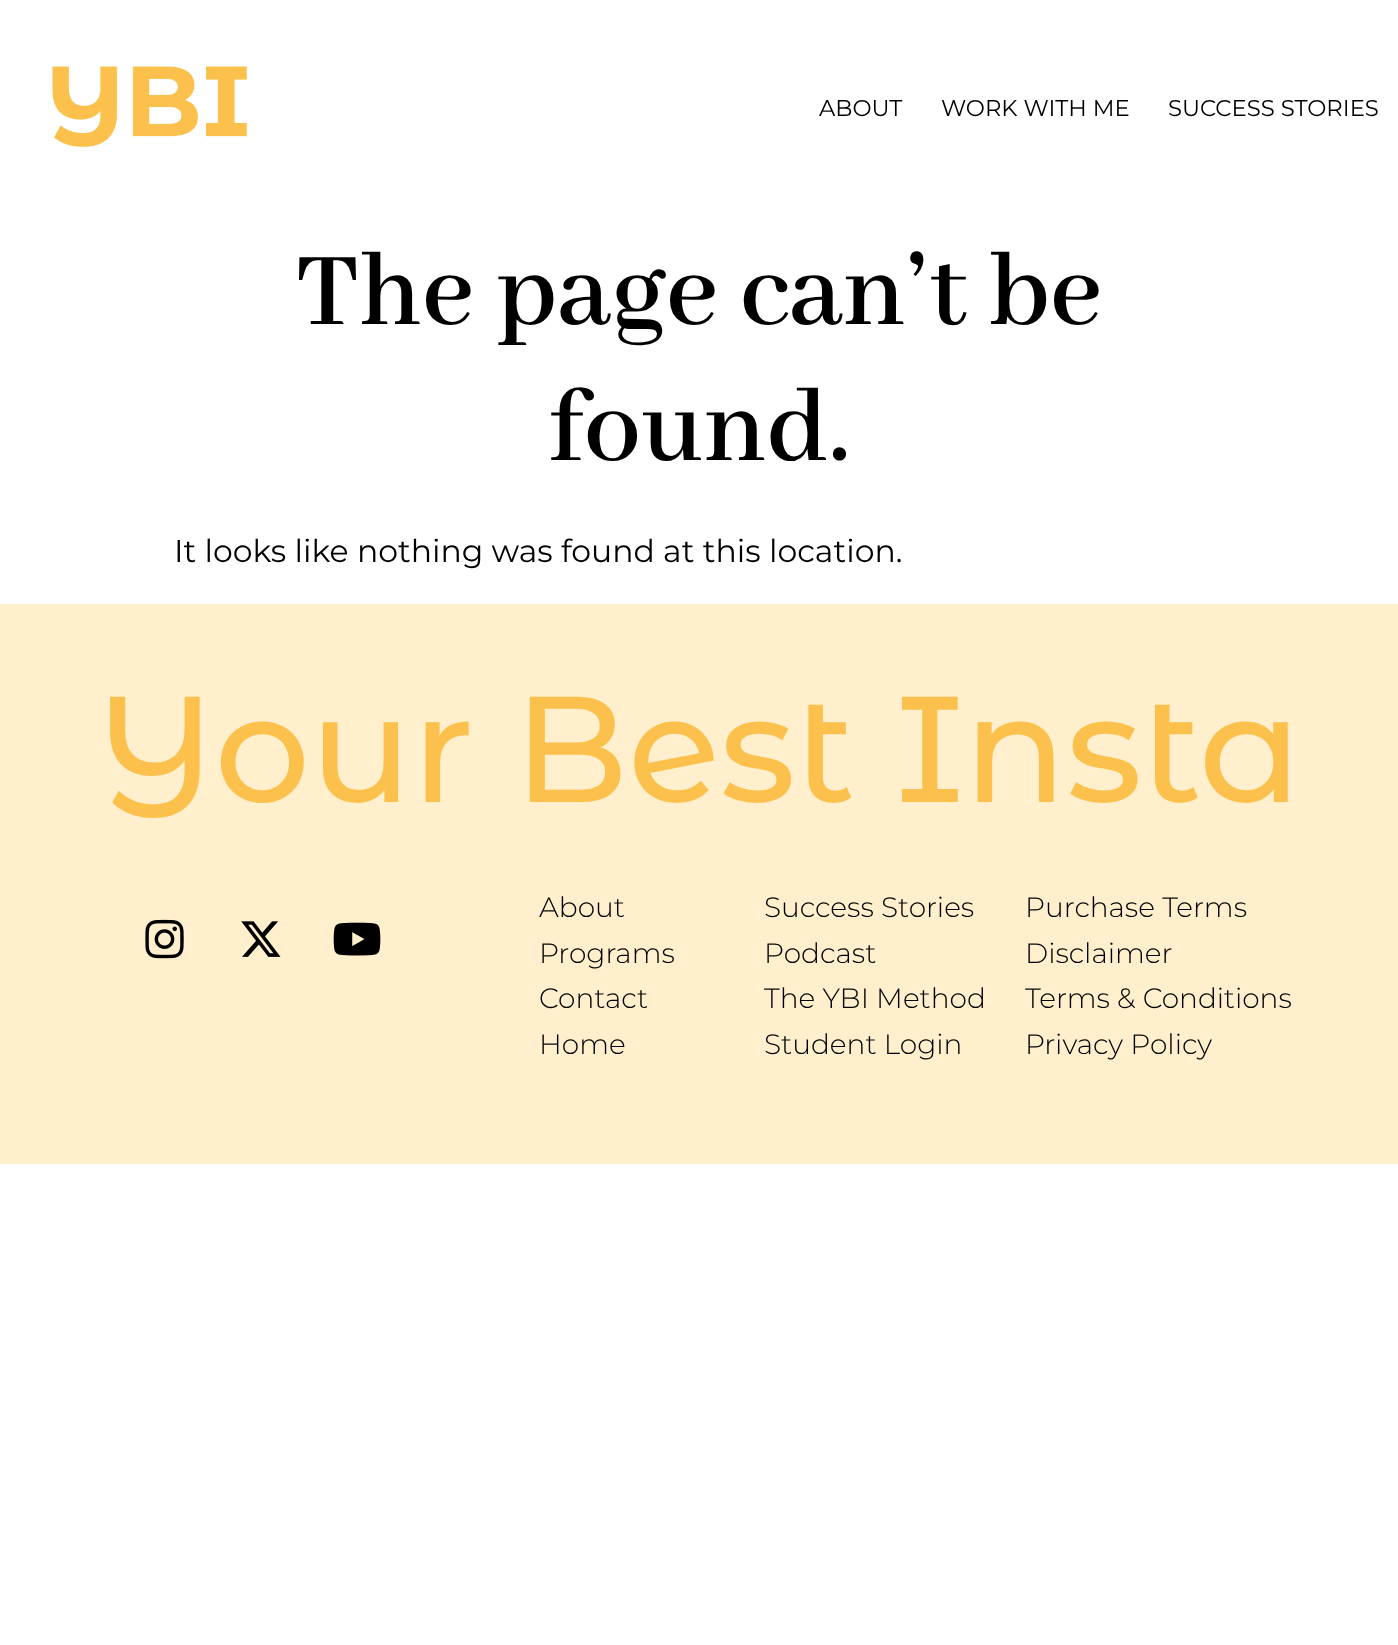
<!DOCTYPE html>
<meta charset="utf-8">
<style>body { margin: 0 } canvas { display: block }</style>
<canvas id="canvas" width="1398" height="1645"></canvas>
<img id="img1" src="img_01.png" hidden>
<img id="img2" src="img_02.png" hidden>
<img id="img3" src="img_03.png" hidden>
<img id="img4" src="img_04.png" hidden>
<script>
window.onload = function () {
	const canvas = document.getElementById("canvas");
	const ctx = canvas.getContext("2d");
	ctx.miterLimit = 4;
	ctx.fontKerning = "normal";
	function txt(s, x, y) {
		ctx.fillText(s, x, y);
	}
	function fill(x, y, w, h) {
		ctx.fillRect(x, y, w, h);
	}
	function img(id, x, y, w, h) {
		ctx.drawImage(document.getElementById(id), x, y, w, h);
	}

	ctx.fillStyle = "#FFFFFF";
	fill(0, 0, 1398, 1645);
	img("img1", 52, 66, 195, 81);
	ctx.fillStyle = "#FFEFCC";
	fill(0, 604, 1398, 560);
	img("img2", 145, 919, 39, 40);
	img("img3", 241, 921, 40, 36);
	img("img4", 333, 922, 48, 34);
	ctx.font = "22.75px Montserrat";
	ctx.fillStyle = "#000000";
	txt("ABOUT", 819, 116);
	txt("WORK WITH ME", 941, 116);
	txt("SUCCESS STORIES", 1168, 116);
	ctx.font = "600 113.75px Abhaya Libre SemiBold";
	txt("The page can’t be", 296, 324);
	txt("found.", 548, 460);
	ctx.font = "31.5px Montserrat";
	txt("It looks like nothing was found at this location.", 174, 562);
	ctx.font = "500 150.5px Montserrat Alternates";
	ctx.fillStyle = "#FCC14C";
	txt("Your Best Insta", 96, 802);
	ctx.font = "300 28px Montserrat";
	ctx.fillStyle = "#000000";
	txt("About", 539, 917);
	txt("Programs", 539, 963);
	txt("Contact", 539, 1008);
	txt("Home", 539, 1054);
	txt("Success Stories", 764, 917);
	txt("Podcast", 764, 963);
	txt("The YBI Method", 764, 1008);
	txt("Student Login", 764, 1054);
	txt("Purchase Terms", 1025, 917);
	txt("Disclaimer", 1025, 963);
	txt("Terms & Conditions", 1025, 1008);
	txt("Privacy Policy", 1025, 1054);
};
</script>
